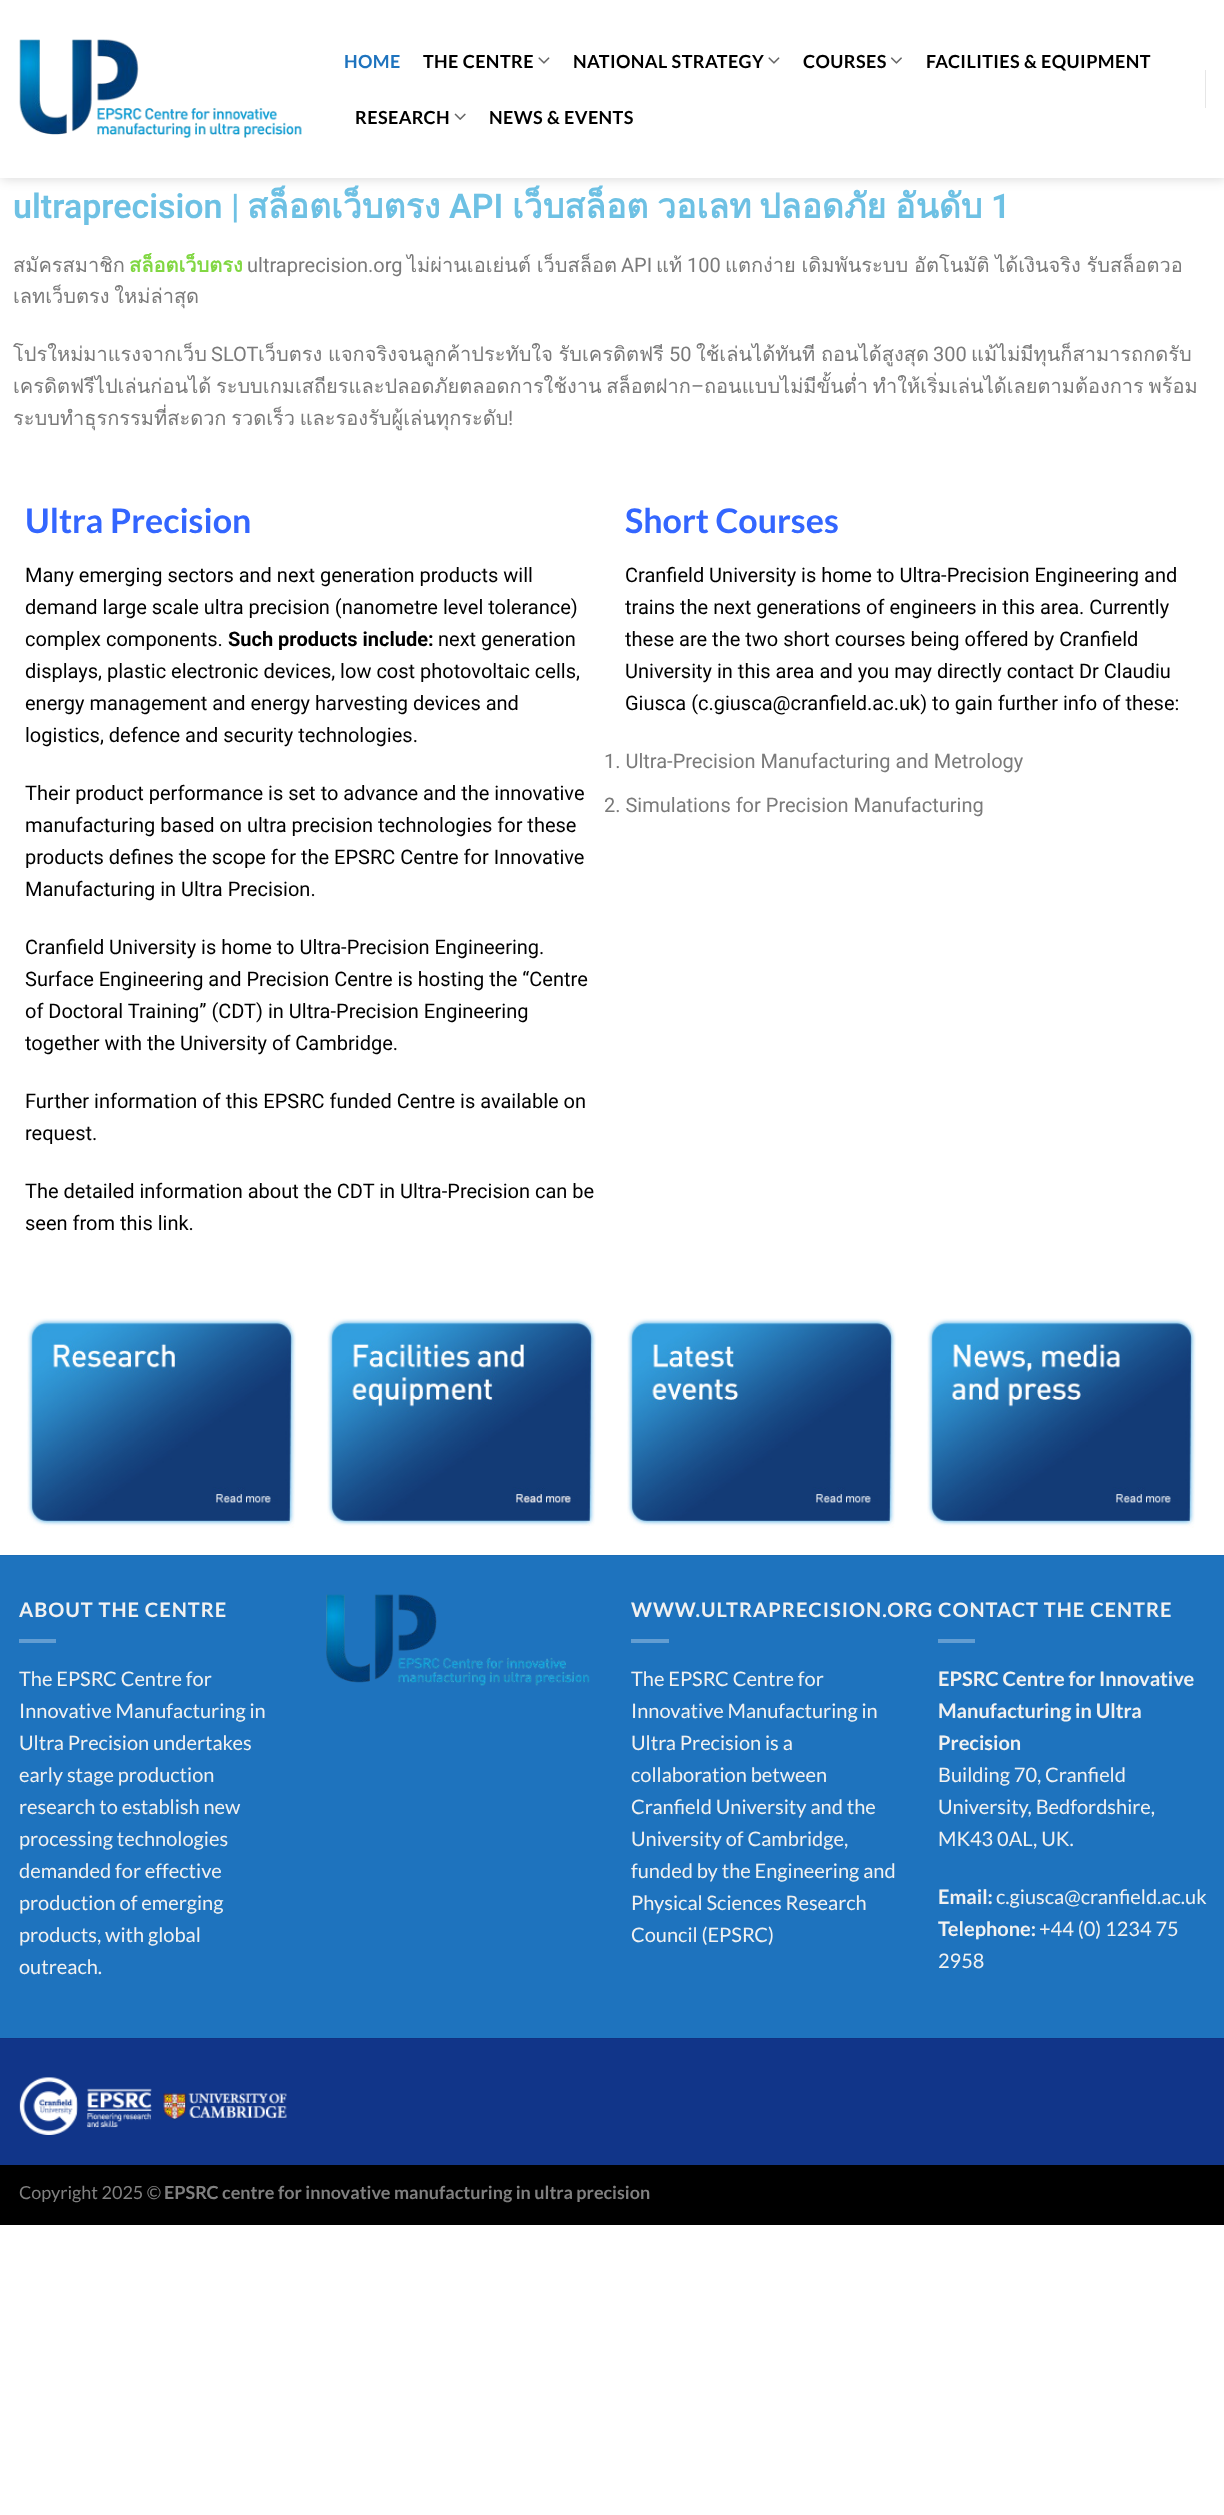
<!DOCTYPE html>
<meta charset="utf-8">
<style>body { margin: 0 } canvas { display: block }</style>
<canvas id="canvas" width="1224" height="2515"></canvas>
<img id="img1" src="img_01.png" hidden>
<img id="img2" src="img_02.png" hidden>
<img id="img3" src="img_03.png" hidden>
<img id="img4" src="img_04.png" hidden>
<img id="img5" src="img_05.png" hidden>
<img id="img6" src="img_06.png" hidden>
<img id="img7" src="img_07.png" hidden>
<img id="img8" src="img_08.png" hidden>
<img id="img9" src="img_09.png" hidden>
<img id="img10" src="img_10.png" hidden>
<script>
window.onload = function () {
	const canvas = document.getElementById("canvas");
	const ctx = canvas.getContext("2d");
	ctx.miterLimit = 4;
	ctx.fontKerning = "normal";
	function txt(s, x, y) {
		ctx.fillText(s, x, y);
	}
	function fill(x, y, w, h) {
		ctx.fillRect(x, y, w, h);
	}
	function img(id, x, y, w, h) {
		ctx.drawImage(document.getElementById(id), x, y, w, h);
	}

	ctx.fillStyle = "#FFFFFF";
	fill(0, 0, 1224, 2515);
	ctx.save();
	ctx.beginPath();
	ctx.moveTo(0, 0);
	ctx.lineTo(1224, 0);
	ctx.lineTo(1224, 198);
	ctx.lineTo(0, 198);
	ctx.closePath();
	ctx.moveTo(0, 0);
	ctx.lineTo(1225, 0);
	ctx.lineTo(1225, 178);
	ctx.lineTo(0, 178);
	ctx.closePath();
	ctx.clip("evenodd");
	ctx.fillStyle = "rgba(0, 0, 0, 0.15)";
	ctx.filter = "blur(6px)";
	ctx.beginPath();
	ctx.rect(1, 1, 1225, 178);
	ctx.fill();
	ctx.filter = "none";
	ctx.restore();
	img("img1", 19, 39, 283, 99);
	img("img2", 538, 57, 12, 7);
	img("img2", 768, 57, 12, 7);
	img("img3", 890, 57, 12, 7);
	img("img4", 454, 113, 12, 7);
	ctx.fillStyle = "#E6E6E6";
	fill(1205, 70, 1, 38);
	ctx.fillStyle = "rgba(255, 255, 255, 0.9)";
	fill(0, 177, 1224, 1);
	img("img5", 27, 1318, 269, 210);
	img("img6", 327, 1318, 269, 208);
	img("img7", 627, 1318, 269, 210);
	img("img8", 927, 1318, 269, 210);
	ctx.fillStyle = "#1E73BE";
	fill(0, 1556, 1224, 482);
	ctx.fillStyle = "#1D6DB5";
	fill(0, 1555, 1224, 1);
	ctx.fillStyle = "#629DD2";
	fill(19, 1639, 37, 4);
	img("img9", 326, 1594, 264, 92);
	fill(631, 1639, 38, 4);
	fill(938, 1639, 37, 4);
	ctx.fillStyle = "#113589";
	fill(0, 2039, 1224, 126);
	ctx.fillStyle = "#103282";
	fill(0, 2038, 1224, 1);
	img("img10", 19, 2077, 268, 58);
	ctx.fillStyle = "#000000";
	fill(0, 2165, 1224, 60);
	ctx.letterSpacing = "0.4px";
	ctx.font = "bold 18px Lato";
	ctx.fillStyle = "#1E73BE";
	txt("HOME", 344, 68);
	ctx.fillStyle = "#000000";
	txt("THE CENTRE", 423, 68);
	txt("NATIONAL STRATEGY", 573, 68);
	txt("COURSES", 803, 68);
	txt("FACILITIES & EQUIPMENT", 926, 68);
	txt("RESEARCH", 355, 124);
	txt("NEWS & EVENTS", 489, 124);
	ctx.letterSpacing = "0px";
	ctx.font = "600 34px Roboto";
	ctx.fillStyle = "#6EC1E4";
	txt("ultraprecision |", 13, 218);
	ctx.font = "bold 34px Loma";
	txt("สล็อตเว็บตรง", 247, 218);
	ctx.font = "600 34px Roboto";
	txt("API", 449, 218);
	ctx.font = "bold 34px Loma";
	txt("เว็บสล็อต", 512, 218);
	txt("วอเลท", 657, 218);
	txt("ปลอดภัย", 759, 218);
	txt("อันดับ", 895, 218);
	ctx.font = "600 34px Roboto";
	txt("1", 991, 218);
	ctx.font = "20px Loma";
	ctx.fillStyle = "#7A7A7A";
	txt("สมัครสมาชิก", 13, 272);
	ctx.font = "bold 20px Loma";
	ctx.fillStyle = "#81D742";
	txt("สล็อตเว็บตรง", 129, 272);
	ctx.font = "20px Roboto";
	ctx.fillStyle = "#7A7A7A";
	txt("ultraprecision.org", 247, 272);
	ctx.wordSpacing = "-1px";
	ctx.font = "20px Loma";
	txt("ไม่ผ่านเอเย่นต์ เว็บสล็อต", 407, 272);
	ctx.wordSpacing = "0px";
	ctx.font = "20px Roboto";
	txt("API", 621, 272);
	ctx.font = "20px Loma";
	txt("แท้", 656, 272);
	ctx.font = "20px Roboto";
	txt("100", 687, 272);
	ctx.wordSpacing = "-1px";
	ctx.font = "20px Loma";
	txt("แตกง่าย เดิมพันระบบ อัตโนมัติ ได้เงินจริง รับสล็อตวอ", 725, 272);
	ctx.wordSpacing = "-2px";
	txt("เลทเว็บตรง ใหม่ล่าสุด", 13, 303);
	ctx.wordSpacing = "0px";
	txt("โปรใหม่มาแรงจากเว็บ", 13, 361);
	ctx.font = "20px Roboto";
	txt("SLOT", 211, 361);
	ctx.wordSpacing = "-1px";
	ctx.font = "20px Loma";
	txt("เว็บตรง แจกจริงจนลูกค้าประทับใจ รับเครดิตฟรี", 258, 361);
	ctx.wordSpacing = "0px";
	ctx.font = "20px Roboto";
	txt("50", 669, 361);
	ctx.wordSpacing = "-1px";
	ctx.font = "20px Loma";
	txt("ใช้เล่นได้ทันที ถอนได้สูงสุด", 696, 361);
	ctx.wordSpacing = "0px";
	ctx.font = "20px Roboto";
	txt("300", 933, 361);
	ctx.font = "20px Loma";
	txt("แม้ไม่มีทุนก็สามารถกดรับ", 971, 361);
	ctx.wordSpacing = "-2px";
	txt("เครดิตฟรีไปเล่นก่อนได้ ระบบเกมเสถียรและปลอดภัยตลอดการใช้งาน สล็อตฝาก", 13, 393);
	ctx.wordSpacing = "0px";
	ctx.font = "20px Roboto";
	txt("–", 691, 393);
	ctx.wordSpacing = "-2px";
	ctx.font = "20px Loma";
	txt("ถอนแบบไม่มีขั้นต่ำ ทำให้เริ่มเล่นได้เลยตามต้องการ พร้อม", 704, 393);
	txt("ระบบทำธุรกรรมที่สะดวก รวดเร็ว และรองรับผู้เล่นทุกระดับ", 13, 425);
	ctx.wordSpacing = "0px";
	ctx.font = "20px Roboto";
	txt("!", 508, 425);
	ctx.font = "bold 34px Lato";
	ctx.fillStyle = "#3366FF";
	txt("Ultra Precision", 25, 533);
	ctx.font = "20px Roboto";
	ctx.fillStyle = "#000000";
	txt("Many emerging sectors and next generation products will", 25, 582);
	txt("demand large scale ultra precision (nanometre level tolerance)", 25, 614);
	txt("complex components.", 25, 646);
	ctx.font = "bold 20px Roboto";
	txt("Such products include:", 228, 646);
	ctx.font = "20px Roboto";
	txt("next generation", 438, 646);
	txt("displays, plastic electronic devices, low cost photovoltaic cells,", 25, 678);
	txt("energy management and energy harvesting devices and", 25, 710);
	txt("logistics, defence and security technologies.", 25, 742);
	txt("Their product performance is set to advance and the innovative", 25, 800);
	txt("manufacturing based on ultra precision technologies for these", 25, 832);
	txt("products defines the scope for the EPSRC Centre for Innovative", 25, 864);
	txt("Manufacturing in Ultra Precision.", 25, 896);
	txt("Cranfield University is home to Ultra-Precision Engineering.", 25, 954);
	txt("Surface Engineering and Precision Centre is hosting the “Centre", 25, 986);
	txt("of Doctoral Training” (CDT) in Ultra-Precision Engineering", 25, 1018);
	txt("together with the University of Cambridge.", 25, 1050);
	txt("Further information of this EPSRC funded Centre is available on", 25, 1108);
	txt("request.", 25, 1140);
	txt("The detailed information about the CDT in Ultra-Precision can be", 25, 1198);
	txt("seen from this link.", 25, 1230);
	ctx.font = "bold 34px Lato";
	ctx.fillStyle = "#3366FF";
	txt("Short Courses", 625, 533);
	ctx.font = "20px Roboto";
	ctx.fillStyle = "#000000";
	txt("Cranfield University is home to Ultra-Precision Engineering and", 625, 582);
	txt("trains the next generations of engineers in this area. Currently", 625, 614);
	txt("these are the two short courses being offered by Cranfield", 625, 646);
	txt("University in this area and you may directly contact Dr Claudiu", 625, 678);
	txt("Giusca (c.giusca@cranfield.ac.uk) to gain further info of these:", 625, 710);
	ctx.fillStyle = "#7A7A7A";
	txt("1. Ultra-Precision Manufacturing and Metrology", 604, 768);
	txt("2. Simulations for Precision Manufacturing", 604, 812);
	ctx.letterSpacing = "1px";
	ctx.font = "bold 20px Lato";
	ctx.fillStyle = "#F1F1F1";
	txt("ABOUT THE CENTRE", 19, 1617);
	ctx.letterSpacing = "0px";
	ctx.font = "20px Lato";
	txt("The EPSRC Centre for", 19, 1686);
	txt("Innovative Manufacturing in", 19, 1718);
	txt("Ultra Precision undertakes", 19, 1750);
	txt("early stage production", 19, 1782);
	txt("research to establish new", 19, 1814);
	txt("processing technologies", 19, 1846);
	txt("demanded for effective", 19, 1878);
	txt("production of emerging", 19, 1910);
	txt("products, with global", 19, 1942);
	txt("outreach.", 19, 1974);
	ctx.letterSpacing = "1px";
	ctx.font = "bold 20px Lato";
	txt("WWW.ULTRAPRECISION.ORG", 631, 1617);
	ctx.letterSpacing = "0px";
	ctx.font = "20px Lato";
	txt("The EPSRC Centre for", 631, 1686);
	txt("Innovative Manufacturing in", 631, 1718);
	txt("Ultra Precision is a", 631, 1750);
	txt("collaboration between", 631, 1782);
	txt("Cranfield University and the", 631, 1814);
	txt("University of Cambridge,", 631, 1846);
	txt("funded by the Engineering and", 631, 1878);
	txt("Physical Sciences Research", 631, 1910);
	txt("Council (EPSRC)", 631, 1942);
	ctx.letterSpacing = "1px";
	ctx.font = "bold 20px Lato";
	txt("CONTACT THE CENTRE", 938, 1617);
	ctx.letterSpacing = "0px";
	txt("EPSRC Centre for Innovative", 938, 1686);
	txt("Manufacturing in Ultra", 938, 1718);
	txt("Precision", 938, 1750);
	ctx.font = "20px Lato";
	txt("Building 70, Cranfield", 938, 1782);
	txt("University, Bedfordshire,", 938, 1814);
	txt("MK43 0AL, UK.", 938, 1846);
	ctx.font = "bold 20px Lato";
	txt("Email:", 938, 1904);
	ctx.font = "20px Lato";
	txt("c.giusca@cranfield.ac.uk", 996, 1904);
	ctx.font = "bold 20px Lato";
	txt("Telephone:", 938, 1936);
	ctx.font = "20px Lato";
	txt("+44 (0) 1234 75", 1039, 1936);
	txt("2958", 938, 1968);
	ctx.font = "18px Lato";
	ctx.fillStyle = "#808080";
	txt("Copyright 2025 ©", 19, 2199);
	ctx.font = "bold 18px Lato";
	txt("EPSRC centre for innovative manufacturing in ultra precision", 164, 2199);
};
</script>
